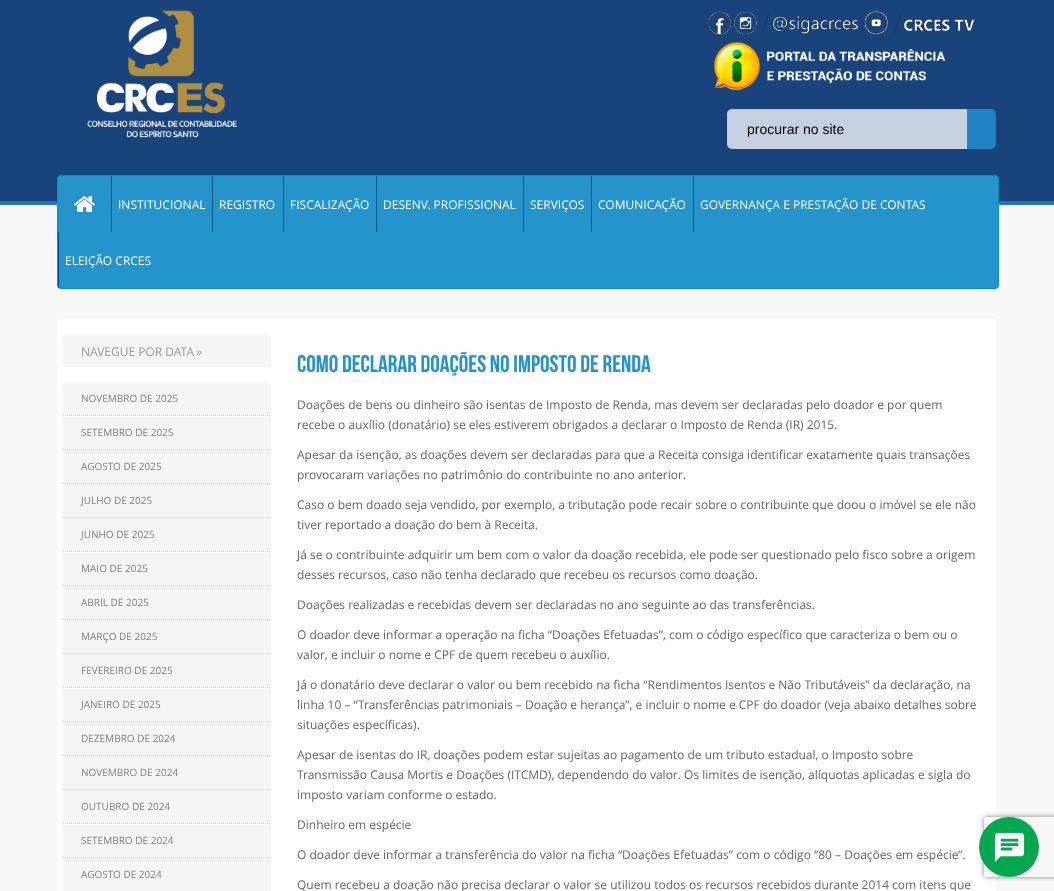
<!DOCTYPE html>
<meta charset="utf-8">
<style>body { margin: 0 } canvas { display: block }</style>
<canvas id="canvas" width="1054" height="891"></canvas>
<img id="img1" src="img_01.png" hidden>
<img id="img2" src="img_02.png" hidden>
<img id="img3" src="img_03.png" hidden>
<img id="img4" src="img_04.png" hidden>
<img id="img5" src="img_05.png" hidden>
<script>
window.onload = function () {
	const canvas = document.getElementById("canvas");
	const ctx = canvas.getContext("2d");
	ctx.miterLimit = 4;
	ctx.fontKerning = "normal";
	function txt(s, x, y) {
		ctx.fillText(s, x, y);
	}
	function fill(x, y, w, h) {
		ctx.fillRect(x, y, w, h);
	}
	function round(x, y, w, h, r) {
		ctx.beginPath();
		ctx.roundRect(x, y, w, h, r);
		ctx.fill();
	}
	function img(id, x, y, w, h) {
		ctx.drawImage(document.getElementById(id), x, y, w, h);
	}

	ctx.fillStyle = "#F8F8F8";
	fill(0, 0, 1054, 891);
	ctx.fillStyle = "#19447B";
	fill(0, 0, 1054, 201);
	ctx.fillStyle = "#2076BE";
	fill(0, 201, 1054, 4);
	img("img1", 87, 10, 150, 128);
	img("img2", 708, 11, 267, 24);
	img("img3", 714, 42, 232, 49);
	ctx.fillStyle = "#C6D0DE";
	ctx.beginPath();
	ctx.roundRect(727, 109, 240, 40, [5, 0, 0, 5]);
	ctx.fill();
	ctx.fillStyle = "rgba(0, 0, 0, 0.07)";
	ctx.beginPath();
	ctx.moveTo(732, 110);
	ctx.lineTo(967, 110);
	ctx.lineTo(967, 109);
	ctx.lineTo(732, 109);
	ctx.bezierCurveTo(729, 109, 727, 111, 727, 114);
	ctx.lineTo(727, 115);
	ctx.bezierCurveTo(727, 112, 729, 110, 732, 110);
	ctx.closePath();
	ctx.fill();
	ctx.fillStyle = "#2084C4";
	ctx.beginPath();
	ctx.roundRect(967, 109, 29, 40, [0, 5, 5, 0]);
	ctx.fill();
	ctx.fillStyle = "#2594CC";
	ctx.beginPath();
	ctx.roundRect(57.5, 175.5, 941, 113, 3.5);
	ctx.fill();
	ctx.strokeStyle = "#0094B1";
	ctx.stroke();
	img("img4", 74, 196, 21, 16);
	ctx.fillStyle = "#00578F";
	fill(111, 176, 1, 56);
	fill(212, 176, 1, 56);
	fill(283, 176, 1, 56);
	fill(376, 176, 1, 56);
	fill(523, 176, 1, 56);
	fill(591, 176, 1, 56);
	fill(693, 176, 1, 56);
	fill(58, 232, 1, 56);
	ctx.fillStyle = "#FFFFFF";
	fill(57, 319, 940, 572);
	ctx.fillStyle = "#F5F5F5";
	round(63, 335, 208, 32, 4);
	round(63, 383, 208, 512, 4);
	ctx.beginPath();
	ctx.moveTo(63, 415.5);
	ctx.lineTo(271, 415.5);
	ctx.strokeStyle = "#D4D4D4";
	ctx.setLineDash([1, 1]);
	ctx.stroke();
	ctx.beginPath();
	ctx.moveTo(63, 416.5);
	ctx.lineTo(271, 416.5);
	ctx.strokeStyle = "#FFFFFF";
	ctx.stroke();
	ctx.beginPath();
	ctx.moveTo(63, 449.5);
	ctx.lineTo(271, 449.5);
	ctx.strokeStyle = "#D4D4D4";
	ctx.stroke();
	ctx.beginPath();
	ctx.moveTo(63, 450.5);
	ctx.lineTo(271, 450.5);
	ctx.strokeStyle = "#FFFFFF";
	ctx.stroke();
	ctx.beginPath();
	ctx.moveTo(63, 483.5);
	ctx.lineTo(271, 483.5);
	ctx.strokeStyle = "#D4D4D4";
	ctx.stroke();
	ctx.beginPath();
	ctx.moveTo(63, 484.5);
	ctx.lineTo(271, 484.5);
	ctx.strokeStyle = "#FFFFFF";
	ctx.stroke();
	ctx.beginPath();
	ctx.moveTo(63, 517.5);
	ctx.lineTo(271, 517.5);
	ctx.strokeStyle = "#D4D4D4";
	ctx.stroke();
	ctx.beginPath();
	ctx.moveTo(63, 518.5);
	ctx.lineTo(271, 518.5);
	ctx.strokeStyle = "#FFFFFF";
	ctx.stroke();
	ctx.beginPath();
	ctx.moveTo(63, 551.5);
	ctx.lineTo(271, 551.5);
	ctx.strokeStyle = "#D4D4D4";
	ctx.stroke();
	ctx.beginPath();
	ctx.moveTo(63, 552.5);
	ctx.lineTo(271, 552.5);
	ctx.strokeStyle = "#FFFFFF";
	ctx.stroke();
	ctx.beginPath();
	ctx.moveTo(63, 585.5);
	ctx.lineTo(271, 585.5);
	ctx.strokeStyle = "#D4D4D4";
	ctx.stroke();
	ctx.beginPath();
	ctx.moveTo(63, 586.5);
	ctx.lineTo(271, 586.5);
	ctx.strokeStyle = "#FFFFFF";
	ctx.stroke();
	ctx.beginPath();
	ctx.moveTo(63, 619.5);
	ctx.lineTo(271, 619.5);
	ctx.strokeStyle = "#D4D4D4";
	ctx.stroke();
	ctx.beginPath();
	ctx.moveTo(63, 620.5);
	ctx.lineTo(271, 620.5);
	ctx.strokeStyle = "#FFFFFF";
	ctx.stroke();
	ctx.beginPath();
	ctx.moveTo(63, 653.5);
	ctx.lineTo(271, 653.5);
	ctx.strokeStyle = "#D4D4D4";
	ctx.stroke();
	ctx.beginPath();
	ctx.moveTo(63, 654.5);
	ctx.lineTo(271, 654.5);
	ctx.strokeStyle = "#FFFFFF";
	ctx.stroke();
	ctx.beginPath();
	ctx.moveTo(63, 687.5);
	ctx.lineTo(271, 687.5);
	ctx.strokeStyle = "#D4D4D4";
	ctx.stroke();
	ctx.beginPath();
	ctx.moveTo(63, 688.5);
	ctx.lineTo(271, 688.5);
	ctx.strokeStyle = "#FFFFFF";
	ctx.stroke();
	ctx.beginPath();
	ctx.moveTo(63, 721.5);
	ctx.lineTo(271, 721.5);
	ctx.strokeStyle = "#D4D4D4";
	ctx.stroke();
	ctx.beginPath();
	ctx.moveTo(63, 722.5);
	ctx.lineTo(271, 722.5);
	ctx.strokeStyle = "#FFFFFF";
	ctx.stroke();
	ctx.beginPath();
	ctx.moveTo(63, 755.5);
	ctx.lineTo(271, 755.5);
	ctx.strokeStyle = "#D4D4D4";
	ctx.stroke();
	ctx.beginPath();
	ctx.moveTo(63, 756.5);
	ctx.lineTo(271, 756.5);
	ctx.strokeStyle = "#FFFFFF";
	ctx.stroke();
	ctx.beginPath();
	ctx.moveTo(63, 789.5);
	ctx.lineTo(271, 789.5);
	ctx.strokeStyle = "#D4D4D4";
	ctx.stroke();
	ctx.beginPath();
	ctx.moveTo(63, 790.5);
	ctx.lineTo(271, 790.5);
	ctx.strokeStyle = "#FFFFFF";
	ctx.stroke();
	ctx.beginPath();
	ctx.moveTo(63, 823.5);
	ctx.lineTo(271, 823.5);
	ctx.strokeStyle = "#D4D4D4";
	ctx.stroke();
	ctx.beginPath();
	ctx.moveTo(63, 824.5);
	ctx.lineTo(271, 824.5);
	ctx.strokeStyle = "#FFFFFF";
	ctx.stroke();
	ctx.beginPath();
	ctx.moveTo(63, 857.5);
	ctx.lineTo(271, 857.5);
	ctx.strokeStyle = "#D4D4D4";
	ctx.stroke();
	ctx.beginPath();
	ctx.moveTo(63, 858.5);
	ctx.lineTo(271, 858.5);
	ctx.strokeStyle = "#FFFFFF";
	ctx.stroke();
	ctx.save();
	ctx.beginPath();
	ctx.moveTo(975, 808);
	ctx.lineTo(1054, 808);
	ctx.lineTo(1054, 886);
	ctx.lineTo(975, 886);
	ctx.closePath();
	ctx.moveTo(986, 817);
	ctx.lineTo(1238, 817);
	ctx.bezierCurveTo(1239, 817, 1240, 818, 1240, 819);
	ctx.lineTo(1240, 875);
	ctx.bezierCurveTo(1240, 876, 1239, 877, 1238, 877);
	ctx.lineTo(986, 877);
	ctx.bezierCurveTo(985, 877, 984, 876, 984, 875);
	ctx.lineTo(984, 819);
	ctx.bezierCurveTo(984, 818, 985, 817, 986, 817);
	ctx.closePath();
	ctx.clip("evenodd");
	ctx.fillStyle = "#808080";
	ctx.filter = "blur(2.5px)";
	ctx.beginPath();
	ctx.roundRect(984, 817, 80, 60, 2);
	ctx.fill();
	ctx.filter = "none";
	ctx.restore();
	ctx.fillStyle = "#03A84E";
	ctx.beginPath();
	ctx.arc(1009, 847, 30, 0, Math.PI * 2);
	ctx.fill();
	img("img5", 994, 832, 31, 30);
	ctx.font = "14px Liberation Sans";
	ctx.fillStyle = "#000000";
	txt("procurar no site", 747, 134);
	ctx.font = "12px Open Sans";
	ctx.fillStyle = "#FFFFFF";
	txt("INSTITUCIONAL", 118, 209);
	txt("REGISTRO", 219, 209);
	txt("FISCALIZAÇÃO", 290, 209);
	txt("DESENV. PROFISSIONAL", 383, 209);
	txt("SERVIÇOS", 530, 209);
	txt("COMUNICAÇÃO", 598, 209);
	txt("GOVERNANÇA E PRESTAÇÃO DE CONTAS", 700, 209);
	txt("ELEIÇÃO CRCES", 65, 265);
	ctx.fillStyle = "#999999";
	txt("NAVEGUE POR DATA", 81, 356);
	txt("»", 196, 356);
	ctx.font = "10px Open Sans";
	ctx.fillStyle = "#808080";
	txt("NOVEMBRO DE 2025", 81, 402);
	txt("SETEMBRO DE 2025", 81, 436);
	txt("AGOSTO DE 2025", 81, 470);
	txt("JULHO DE 2025", 81, 504);
	txt("JUNHO DE 2025", 81, 538);
	txt("MAIO DE 2025", 81, 572);
	txt("ABRIL DE 2025", 81, 606);
	txt("MARÇO DE 2025", 81, 640);
	txt("FEVEREIRO DE 2025", 81, 674);
	txt("JANEIRO DE 2025", 81, 708);
	txt("DEZEMBRO DE 2024", 81, 742);
	txt("NOVEMBRO DE 2024", 81, 776);
	txt("OUTUBRO DE 2024", 81, 810);
	txt("SETEMBRO DE 2024", 81, 844);
	txt("AGOSTO DE 2024", 81, 878);
	ctx.font = "24px Bebas Neue";
	ctx.fillStyle = "#2592CB";
	txt("COMO DECLARAR DOAÇÕES NO IMPOSTO DE RENDA", 297, 372);
	ctx.font = "12px Open Sans";
	ctx.fillStyle = "#666666";
	txt("Doações de bens ou dinheiro são isentas de Imposto de Renda, mas devem ser declaradas pelo doador e por quem", 297, 409);
	txt("recebe o auxílio (donatário) se eles estiverem obrigados a declarar o Imposto de Renda (IR) 2015.", 297, 429);
	txt("Apesar da isenção, as doações devem ser declaradas para que a Receita consiga identificar exatamente quais transações", 297, 459);
	txt("provocaram variações no patrimônio do contribuinte no ano anterior.", 297, 479);
	txt("Caso o bem doado seja vendido, por exemplo, a tributação pode recair sobre o contribuinte que doou o imóvel se ele não", 297, 509);
	txt("tiver reportado a doação do bem à Receita.", 297, 529);
	txt("Já se o contribuinte adquirir um bem com o valor da doação recebida, ele pode ser questionado pelo fisco sobre a origem", 297, 559);
	txt("desses recursos, caso não tenha declarado que recebeu os recursos como doação.", 297, 579);
	txt("Doações realizadas e recebidas devem ser declaradas no ano seguinte ao das transferências.", 297, 609);
	txt("O doador deve informar a operação na ficha “Doações Efetuadas”, com o código específico que caracteriza o bem ou o", 297, 639);
	txt("valor, e incluir o nome e CPF de quem recebeu o auxílio.", 297, 659);
	txt("Já o donatário deve declarar o valor ou bem recebido na ficha “Rendimentos Isentos e Não Tributáveis” da declaração, na", 297, 689);
	txt("linha 10 – “Transferências patrimoniais – Doação e herança”, e incluir o nome e CPF do doador (veja abaixo detalhes sobre", 297, 709);
	txt("situações específicas).", 297, 729);
	txt("Apesar de isentas do IR, doações podem estar sujeitas ao pagamento de um tributo estadual, o Imposto sobre", 297, 759);
	txt("Transmissão Causa Mortis e Doações (ITCMD), dependendo do valor. Os limites de isenção, alíquotas aplicadas e sigla do", 297, 779);
	txt("imposto variam conforme o estado.", 297, 799);
	txt("Dinheiro em espécie", 297, 829);
	txt("O doador deve informar a transferência do valor na ficha “Doações Efetuadas” com o código “80 – Doações em espécie”.", 297, 859);
	txt("Quem recebeu a doação não precisa declarar o valor se utilizou todos os recursos recebidos durante 2014 com itens que", 297, 889);
};
</script>
